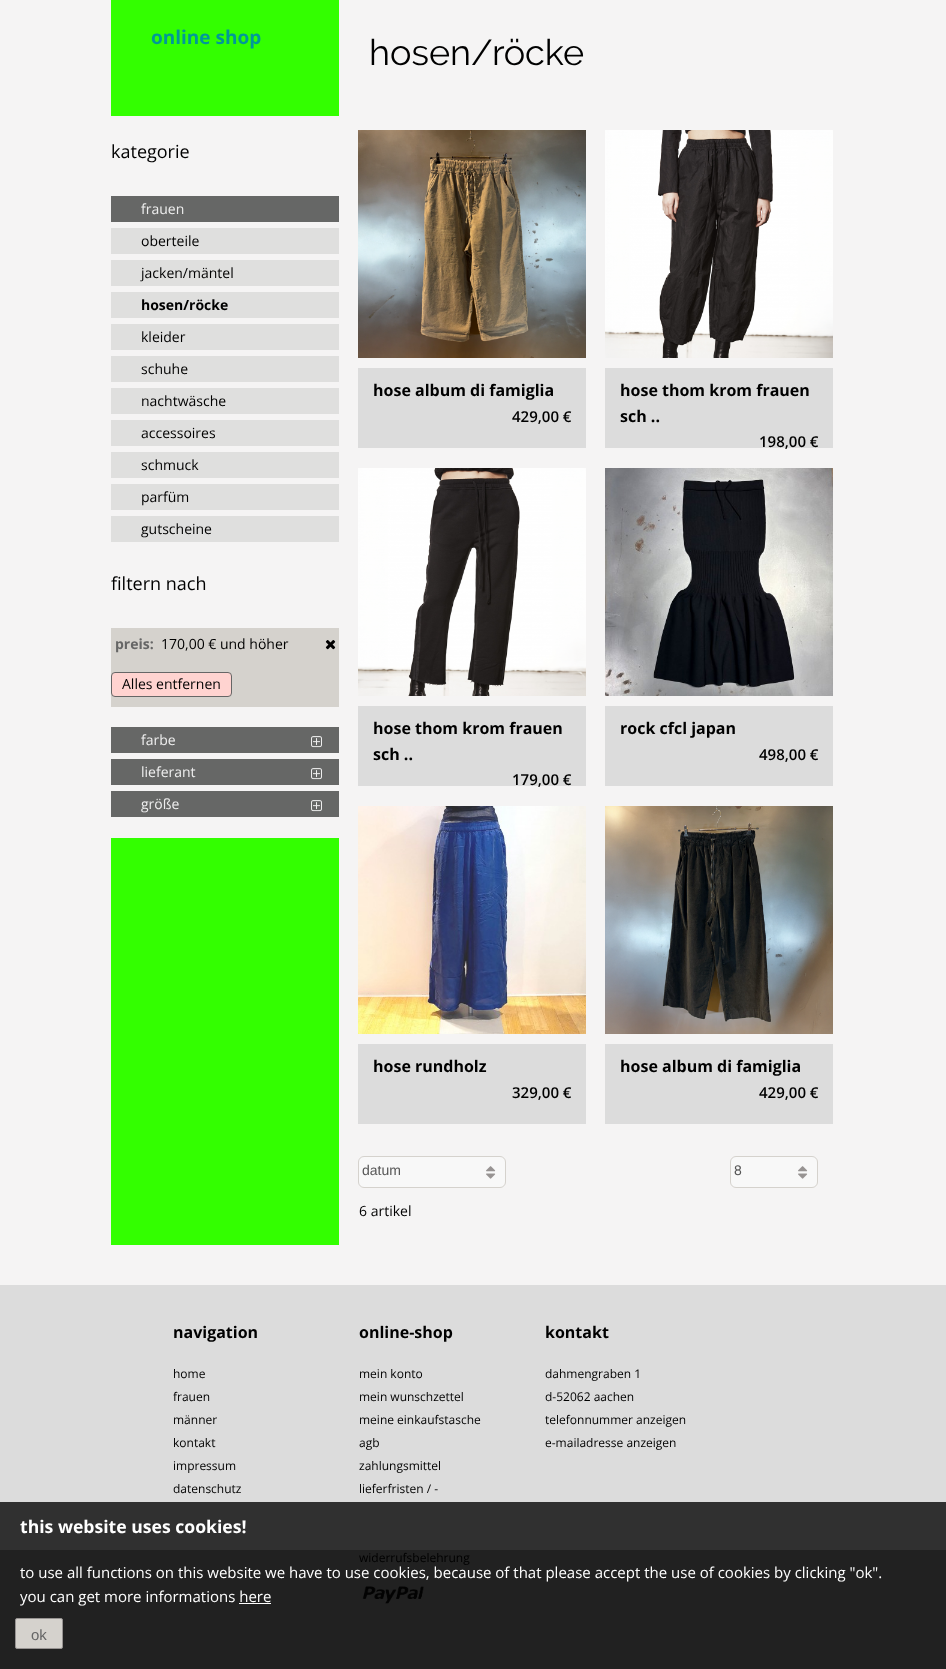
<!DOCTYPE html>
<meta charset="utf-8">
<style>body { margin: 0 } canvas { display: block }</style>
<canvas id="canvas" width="946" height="1669"></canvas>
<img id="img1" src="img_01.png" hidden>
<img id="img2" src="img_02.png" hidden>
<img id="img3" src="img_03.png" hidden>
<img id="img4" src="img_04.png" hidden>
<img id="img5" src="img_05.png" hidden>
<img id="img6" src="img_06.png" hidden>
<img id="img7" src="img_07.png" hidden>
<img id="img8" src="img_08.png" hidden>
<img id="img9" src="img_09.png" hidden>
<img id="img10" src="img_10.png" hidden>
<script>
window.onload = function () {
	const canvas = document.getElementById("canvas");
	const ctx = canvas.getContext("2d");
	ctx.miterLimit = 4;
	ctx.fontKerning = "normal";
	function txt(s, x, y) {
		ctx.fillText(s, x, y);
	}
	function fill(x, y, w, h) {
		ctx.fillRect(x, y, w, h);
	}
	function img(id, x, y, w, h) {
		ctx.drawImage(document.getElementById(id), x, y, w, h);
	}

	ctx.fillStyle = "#F5F4F4";
	fill(0, 0, 946, 1669);
	ctx.fillStyle = "#33FF00";
	fill(111, 0, 228, 1245);
	ctx.fillStyle = "#F5F4F4";
	fill(111, 116, 228, 722);
	ctx.fillStyle = "#666766";
	fill(111, 196, 228, 26);
	ctx.fillStyle = "#DFDFDE";
	fill(111, 228, 228, 26);
	fill(111, 260, 228, 26);
	fill(111, 292, 228, 26);
	fill(111, 324, 228, 26);
	fill(111, 356, 228, 26);
	fill(111, 388, 228, 26);
	fill(111, 420, 228, 26);
	fill(111, 452, 228, 26);
	fill(111, 484, 228, 26);
	fill(111, 516, 228, 26);
	ctx.fillStyle = "#D5D2CD";
	fill(111, 628, 228, 79);
	img("img1", 325, 640, 11, 10);
	ctx.fillStyle = "#FFD3D0";
	ctx.beginPath();
	ctx.roundRect(111.5, 672.5, 120, 24, 3.5);
	ctx.fill();
	ctx.strokeStyle = "#666666";
	ctx.stroke();
	ctx.fillStyle = "#666766";
	fill(111, 727, 228, 26);
	img("img2", 311, 736, 11, 12);
	fill(111, 759, 228, 26);
	img("img2", 311, 768, 11, 12);
	fill(111, 791, 228, 26);
	img("img2", 311, 800, 11, 12);
	img("img3", 358, 130, 228, 228);
	ctx.fillStyle = "#DCDCDC";
	fill(358, 368, 228, 80);
	img("img4", 605, 130, 228, 228);
	fill(605, 368, 228, 80);
	img("img5", 358, 468, 228, 228);
	fill(358, 706, 228, 80);
	img("img6", 605, 468, 228, 228);
	fill(605, 706, 228, 80);
	img("img7", 358, 806, 228, 228);
	fill(358, 1044, 228, 80);
	img("img8", 605, 806, 228, 228);
	fill(605, 1044, 228, 80);
	ctx.fillStyle = "#F8F8F8";
	ctx.beginPath();
	ctx.roundRect(358.5, 1156.5, 147, 31, 5.5);
	ctx.fill();
	ctx.strokeStyle = "#D5D2CD";
	ctx.stroke();
	img("img9", 486, 1166, 10, 13);
	ctx.beginPath();
	ctx.roundRect(730.5, 1156.5, 87, 31, 5.5);
	ctx.fill();
	ctx.stroke();
	img("img9", 798, 1166, 10, 13);
	ctx.fillStyle = "#DCDCDC";
	fill(0, 1285, 946, 217);
	ctx.fillStyle = "#212121";
	fill(0, 1550, 946, 119);
	ctx.fillStyle = "#303030";
	fill(0, 1502, 946, 48);
	img("img10", 362, 1586, 62, 18);
	ctx.fillStyle = "#FFFFFF";
	fill(239, 1603, 32, 1);
	ctx.fillStyle = "#D5D2CD";
	ctx.beginPath();
	ctx.roundRect(15.5, 1618.5, 47, 30, 1.5);
	ctx.fill();
	ctx.strokeStyle = "#979392";
	ctx.stroke();
	ctx.font = "bold 19px Open Sans";
	ctx.fillStyle = "#009999";
	txt("online shop", 151, 44);
	ctx.font = "18px Open Sans";
	ctx.fillStyle = "#000000";
	txt("kategorie", 111, 158);
	ctx.font = "14px Open Sans";
	ctx.fillStyle = "#EEEEEE";
	txt("frauen", 141, 214);
	ctx.fillStyle = "#000000";
	txt("oberteile", 141, 246);
	txt("jacken/mäntel", 141, 278);
	ctx.font = "bold 14px Open Sans";
	txt("hosen/röcke", 141, 310);
	ctx.font = "14px Open Sans";
	txt("kleider", 141, 342);
	txt("schuhe", 141, 374);
	txt("nachtwäsche", 141, 406);
	txt("accessoires", 141, 438);
	txt("schmuck", 141, 470);
	txt("parfüm", 141, 502);
	txt("gutscheine", 141, 534);
	ctx.font = "18px Open Sans";
	txt("filtern nach", 111, 590);
	ctx.font = "bold 14px Open Sans";
	ctx.fillStyle = "#666666";
	txt("preis:", 115, 649);
	ctx.font = "14px Open Sans";
	ctx.fillStyle = "#000000";
	txt("170,00 € und höher", 161, 649);
	txt("Alles entfernen", 122, 689);
	ctx.fillStyle = "#EEEEEE";
	txt("farbe", 141, 745);
	txt("lieferant", 141, 777);
	txt("größe", 141, 809);
	ctx.font = "36px Raleway";
	ctx.fillStyle = "#000000";
	txt("hosen/röcke", 369, 65);
	ctx.font = "bold 16px Open Sans";
	txt("hose album di famiglia", 373, 396);
	ctx.font = "600 15px Open Sans";
	txt("429,00 €", 512, 422);
	ctx.font = "bold 16px Open Sans";
	txt("hose thom krom frauen", 620, 396);
	txt("sch ..", 620, 422);
	ctx.font = "600 15px Open Sans";
	txt("198,00 €", 759, 447);
	ctx.font = "bold 16px Open Sans";
	txt("hose thom krom frauen", 373, 734);
	txt("sch ..", 373, 760);
	ctx.font = "600 15px Open Sans";
	txt("179,00 €", 512, 785);
	ctx.font = "bold 16px Open Sans";
	txt("rock cfcl japan", 620, 734);
	ctx.font = "600 15px Open Sans";
	txt("498,00 €", 759, 760);
	ctx.font = "bold 16px Open Sans";
	txt("hose rundholz", 373, 1072);
	ctx.font = "600 15px Open Sans";
	txt("329,00 €", 512, 1098);
	ctx.font = "bold 16px Open Sans";
	txt("hose album di famiglia", 620, 1072);
	ctx.font = "600 15px Open Sans";
	txt("429,00 €", 759, 1098);
	ctx.font = "14px Liberation Sans";
	ctx.fillStyle = "#555555";
	txt("datum", 362, 1175);
	txt("8", 734, 1175);
	ctx.font = "14px Open Sans";
	ctx.fillStyle = "#000000";
	txt("6 artikel", 359, 1216);
	ctx.font = "bold 16px Open Sans";
	txt("navigation", 173, 1338);
	ctx.font = "12px Open Sans";
	txt("home", 173, 1378);
	txt("frauen", 173, 1401);
	txt("männer", 173, 1424);
	txt("kontakt", 173, 1447);
	txt("impressum", 173, 1470);
	txt("datenschutz", 173, 1493);
	ctx.font = "bold 16px Open Sans";
	txt("online-shop", 359, 1338);
	ctx.font = "12px Open Sans";
	txt("mein konto", 359, 1378);
	txt("mein wunschzettel", 359, 1401);
	txt("meine einkaufstasche", 359, 1424);
	txt("agb", 359, 1447);
	txt("zahlungsmittel", 359, 1470);
	txt("lieferfristen / -", 359, 1493);
	txt("widerrufsbelehrung", 359, 1562);
	ctx.font = "bold 16px Open Sans";
	txt("kontakt", 545, 1338);
	ctx.font = "12px Open Sans";
	txt("dahmengraben 1", 545, 1378);
	txt("d-52062 aachen", 545, 1401);
	txt("telefonnummer anzeigen", 545, 1424);
	txt("e-mailadresse anzeigen", 545, 1447);
	ctx.font = "bold 17.6px Open Sans";
	ctx.fillStyle = "#FFFFFF";
	txt("this website uses cookies!", 20, 1533);
	ctx.font = "15px Open Sans";
	txt("to use all functions on this website we have to use cookies, because of that please accept the use of cookies by clicking \"ok\".", 20, 1578);
	txt("you can get more informations here", 20, 1602);
	ctx.font = "15px Liberation Sans";
	ctx.fillStyle = "#666666";
	txt("ok", 31, 1640);
};
</script>
